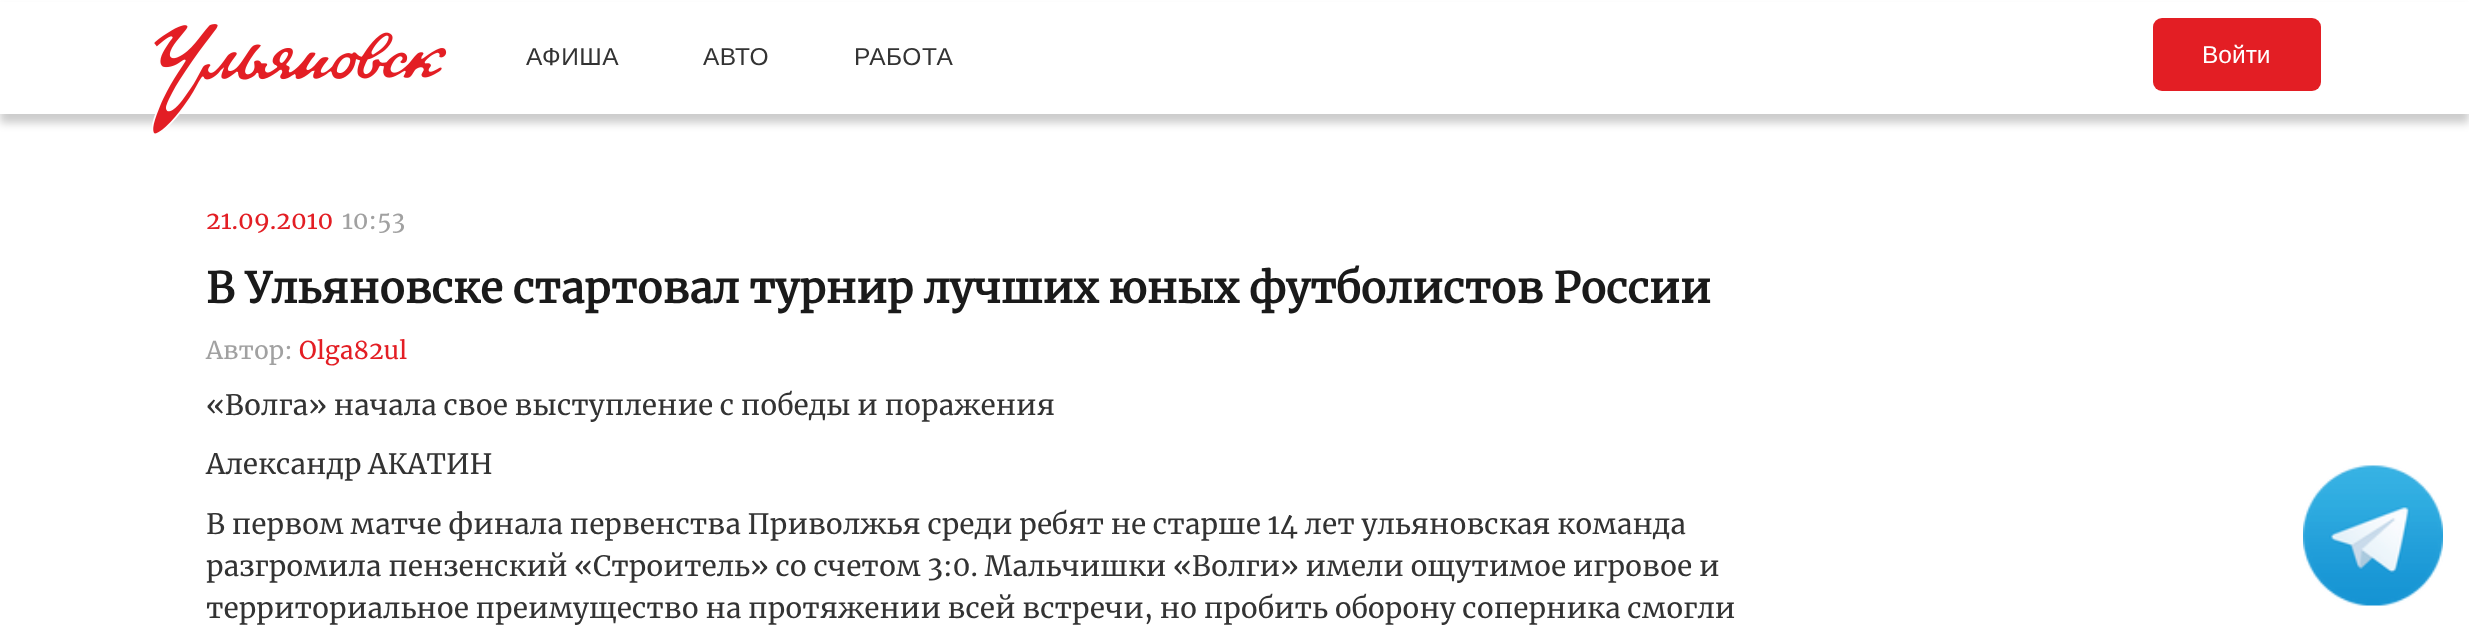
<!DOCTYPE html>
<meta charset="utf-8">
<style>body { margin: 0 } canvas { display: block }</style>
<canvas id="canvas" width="2469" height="637"></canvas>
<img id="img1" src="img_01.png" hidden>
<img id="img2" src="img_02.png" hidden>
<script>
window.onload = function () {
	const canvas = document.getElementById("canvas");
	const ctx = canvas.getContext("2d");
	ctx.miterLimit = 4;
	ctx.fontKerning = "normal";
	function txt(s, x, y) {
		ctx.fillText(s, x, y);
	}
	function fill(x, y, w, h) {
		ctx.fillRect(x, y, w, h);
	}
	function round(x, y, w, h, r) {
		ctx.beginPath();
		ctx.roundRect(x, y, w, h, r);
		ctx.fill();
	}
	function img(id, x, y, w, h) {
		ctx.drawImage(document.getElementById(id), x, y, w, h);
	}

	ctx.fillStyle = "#FFFFFF";
	fill(0, 0, 2469, 637);
	ctx.fillStyle = "rgba(0, 0, 0, 0.2)";
	ctx.filter = "blur(4.5px)";
	ctx.beginPath();
	ctx.rect(0, 9, 2469, 114);
	ctx.fill();
	ctx.filter = "none";
	ctx.fillStyle = "#FFFFFF";
	fill(0, 2, 2469, 112);
	img("img1", 152, 24, 295, 110);
	ctx.fillStyle = "#E31E24";
	round(2153, 18, 168, 73, 9);
	img("img2", 2303, 465, 140, 141);
	ctx.letterSpacing = "0.5px";
	ctx.font = "24.5px Liberation Sans";
	ctx.fillStyle = "#333333";
	txt("АФИША", 526, 65);
	txt("АВТО", 703, 65);
	txt("РАБОТА", 854, 65);
	ctx.letterSpacing = "0px";
	ctx.fillStyle = "#FFFFFF";
	txt("Войти", 2202, 63);
	ctx.font = "24.5px Merriweather";
	ctx.fillStyle = "#E31E24";
	txt("21.09.2010", 206, 229);
	ctx.fillStyle = "#A1A1A1";
	txt("10:53", 342, 229);
	ctx.font = "bold 42px Merriweather";
	ctx.fillStyle = "#1A1A1A";
	txt("В Ульяновске стартовал турнир лучших юных футболистов России", 206, 303);
	ctx.font = "24.5px Merriweather";
	ctx.fillStyle = "#A1A1A1";
	txt("Автор:", 206, 359);
	ctx.fillStyle = "#E31E24";
	txt("Olga82ul", 299, 359);
	ctx.font = "28px Merriweather";
	ctx.fillStyle = "#333333";
	txt("«Волга» начала свое выступление с победы и поражения", 206, 415);
	txt("Александр АКАТИН", 206, 474);
	txt("В первом матче финала первенства Приволжья среди ребят не старше 14 лет ульяновская команда", 206, 534);
	txt("разгромила пензенский «Строитель» со счетом 3:0. Мальчишки «Волги» имели ощутимое игровое и", 206, 576);
	txt("территориальное преимущество на протяжении всей встречи, но пробить оборону соперника смогли", 206, 618);
};
</script>
